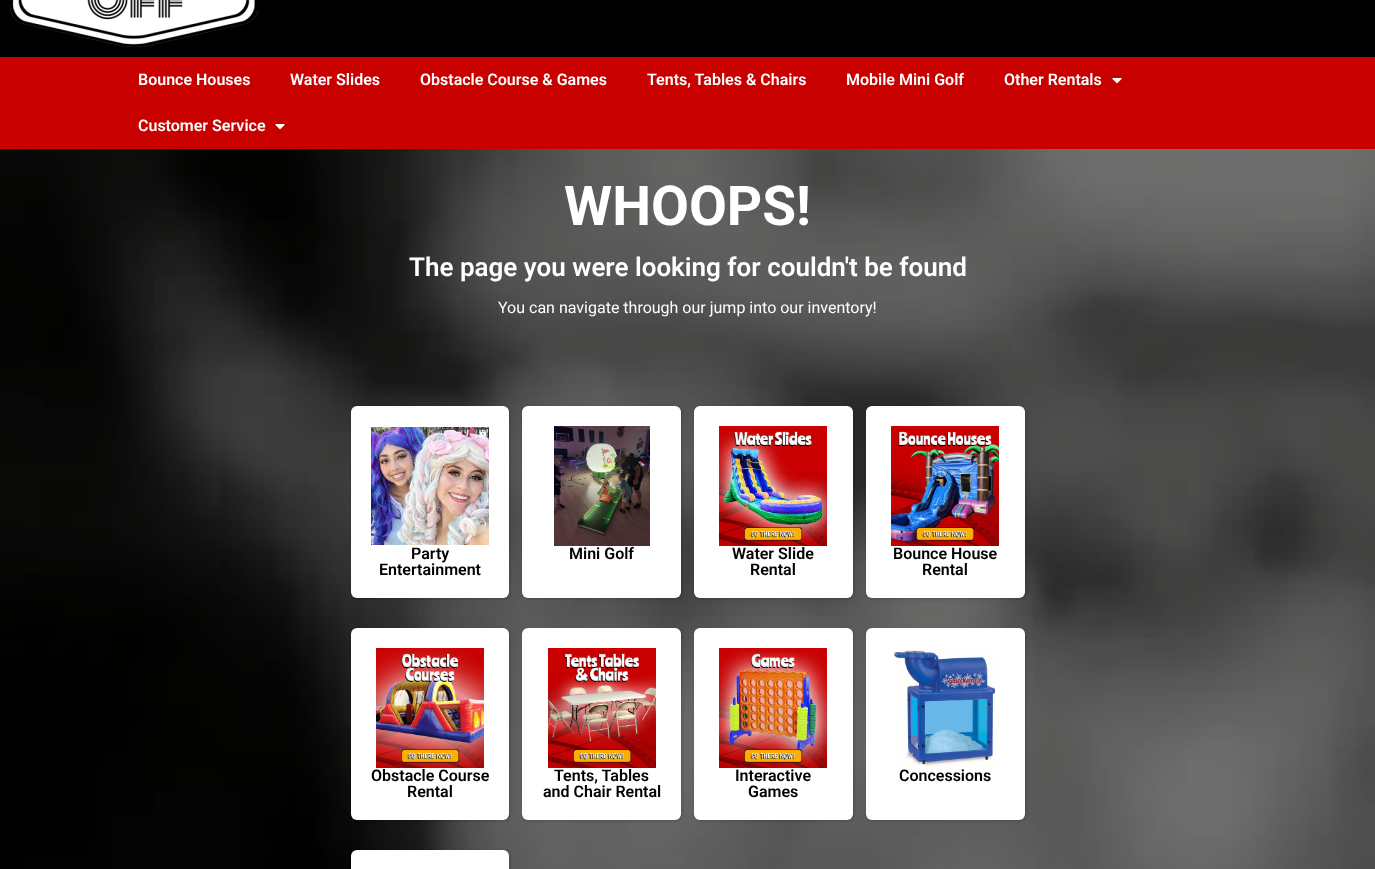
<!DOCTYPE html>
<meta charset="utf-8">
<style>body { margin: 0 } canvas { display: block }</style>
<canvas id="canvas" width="1375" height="869"></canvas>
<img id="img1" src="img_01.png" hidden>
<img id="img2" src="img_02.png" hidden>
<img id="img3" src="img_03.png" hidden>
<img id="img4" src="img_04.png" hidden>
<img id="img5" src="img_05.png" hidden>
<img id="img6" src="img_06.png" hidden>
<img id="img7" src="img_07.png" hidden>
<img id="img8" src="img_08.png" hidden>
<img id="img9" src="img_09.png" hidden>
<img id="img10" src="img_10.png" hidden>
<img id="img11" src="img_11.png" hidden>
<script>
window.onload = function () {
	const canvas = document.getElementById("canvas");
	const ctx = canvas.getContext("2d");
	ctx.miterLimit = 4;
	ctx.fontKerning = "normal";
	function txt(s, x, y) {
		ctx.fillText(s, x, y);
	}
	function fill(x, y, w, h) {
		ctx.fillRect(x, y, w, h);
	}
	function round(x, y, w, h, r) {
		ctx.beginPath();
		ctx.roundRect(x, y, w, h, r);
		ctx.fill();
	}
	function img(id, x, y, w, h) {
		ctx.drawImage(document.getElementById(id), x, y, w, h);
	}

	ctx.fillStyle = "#000000";
	fill(0, 0, 1375, 869);
	img("img1", 10, 0, 248, 47);
	ctx.fillStyle = "#C80000";
	fill(0, 57, 1375, 92);
	img("img2", 1112, 78, 10, 6);
	img("img2", 275, 124, 10, 6);
	img("img3", 0, 149, 1375, 720);
	ctx.fillStyle = "rgba(0, 0, 0, 0.2)";
	ctx.filter = "blur(1.5px)";
	ctx.beginPath();
	ctx.roundRect(352, 407, 158, 192, 6);
	ctx.fill();
	ctx.filter = "none";
	ctx.fillStyle = "#FFFFFF";
	round(351, 406, 158, 192, 6);
	img("img4", 371, 427, 118, 118);
	ctx.fillStyle = "rgba(0, 0, 0, 0.2)";
	ctx.filter = "blur(1.5px)";
	ctx.beginPath();
	ctx.roundRect(523, 407, 159, 192, 6);
	ctx.fill();
	ctx.filter = "none";
	ctx.fillStyle = "#FFFFFF";
	round(522, 406, 159, 192, 6);
	img("img5", 554, 426, 96, 120);
	ctx.fillStyle = "rgba(0, 0, 0, 0.2)";
	ctx.filter = "blur(1.5px)";
	ctx.beginPath();
	ctx.roundRect(695, 407, 159, 192, 6);
	ctx.fill();
	ctx.filter = "none";
	ctx.fillStyle = "#FFFFFF";
	round(694, 406, 159, 192, 6);
	img("img6", 719, 426, 108, 120);
	ctx.fillStyle = "rgba(0, 0, 0, 0.2)";
	ctx.filter = "blur(1.5px)";
	ctx.beginPath();
	ctx.roundRect(867, 407, 159, 192, 6);
	ctx.fill();
	ctx.filter = "none";
	ctx.fillStyle = "#FFFFFF";
	round(866, 406, 159, 192, 6);
	img("img7", 891, 426, 108, 120);
	ctx.fillStyle = "rgba(0, 0, 0, 0.2)";
	ctx.filter = "blur(1.5px)";
	ctx.beginPath();
	ctx.roundRect(352, 629, 158, 192, 6);
	ctx.fill();
	ctx.filter = "none";
	ctx.fillStyle = "#FFFFFF";
	round(351, 628, 158, 192, 6);
	img("img8", 376, 648, 108, 120);
	ctx.fillStyle = "rgba(0, 0, 0, 0.2)";
	ctx.filter = "blur(1.5px)";
	ctx.beginPath();
	ctx.roundRect(523, 629, 159, 192, 6);
	ctx.fill();
	ctx.filter = "none";
	ctx.fillStyle = "#FFFFFF";
	round(522, 628, 159, 192, 6);
	img("img9", 548, 648, 108, 120);
	ctx.fillStyle = "rgba(0, 0, 0, 0.2)";
	ctx.filter = "blur(1.5px)";
	ctx.beginPath();
	ctx.roundRect(695, 629, 159, 192, 6);
	ctx.fill();
	ctx.filter = "none";
	ctx.fillStyle = "#FFFFFF";
	round(694, 628, 159, 192, 6);
	img("img10", 719, 648, 108, 120);
	ctx.fillStyle = "rgba(0, 0, 0, 0.2)";
	ctx.filter = "blur(1.5px)";
	ctx.beginPath();
	ctx.roundRect(867, 629, 159, 192, 6);
	ctx.fill();
	ctx.filter = "none";
	ctx.fillStyle = "#FFFFFF";
	round(866, 628, 159, 192, 6);
	img("img11", 893, 650, 103, 117);
	ctx.fillStyle = "rgba(0, 0, 0, 0.2)";
	ctx.filter = "blur(1.5px)";
	ctx.beginPath();
	ctx.roundRect(352, 851, 158, 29, 6);
	ctx.fill();
	ctx.filter = "none";
	ctx.fillStyle = "#FFFFFF";
	round(351, 850, 158, 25, 6);
	ctx.font = "600 16px Roboto";
	txt("Bounce Houses", 138, 85);
	txt("Water Slides", 290, 85);
	txt("Obstacle Course & Games", 420, 85);
	txt("Tents, Tables & Chairs", 647, 85);
	txt("Mobile Mini Golf", 846, 85);
	txt("Other Rentals", 1004, 85);
	txt("Customer Service", 138, 131);
	ctx.font = "bold 55px Roboto";
	txt("WHOOPS!", 564, 225);
	ctx.font = "600 26px Roboto";
	txt("The page you were looking for couldn't be found", 409, 276);
	ctx.font = "16px Roboto";
	txt("You can navigate through our jump into our inventory!", 498, 313);
	ctx.font = "600 16px Roboto";
	ctx.fillStyle = "#000000";
	txt("Party", 411, 559);
	txt("Entertainment", 379, 575);
	txt("Mini Golf", 569, 559);
	txt("Water Slide", 732, 559);
	txt("Rental", 750, 575);
	txt("Bounce House", 893, 559);
	txt("Rental", 922, 575);
	txt("Obstacle Course", 371, 781);
	txt("Rental", 407, 797);
	txt("Tents, Tables", 554, 781);
	txt("and Chair Rental", 543, 797);
	txt("Interactive", 735, 781);
	txt("Games", 748, 797);
	txt("Concessions", 899, 781);
};
</script>
